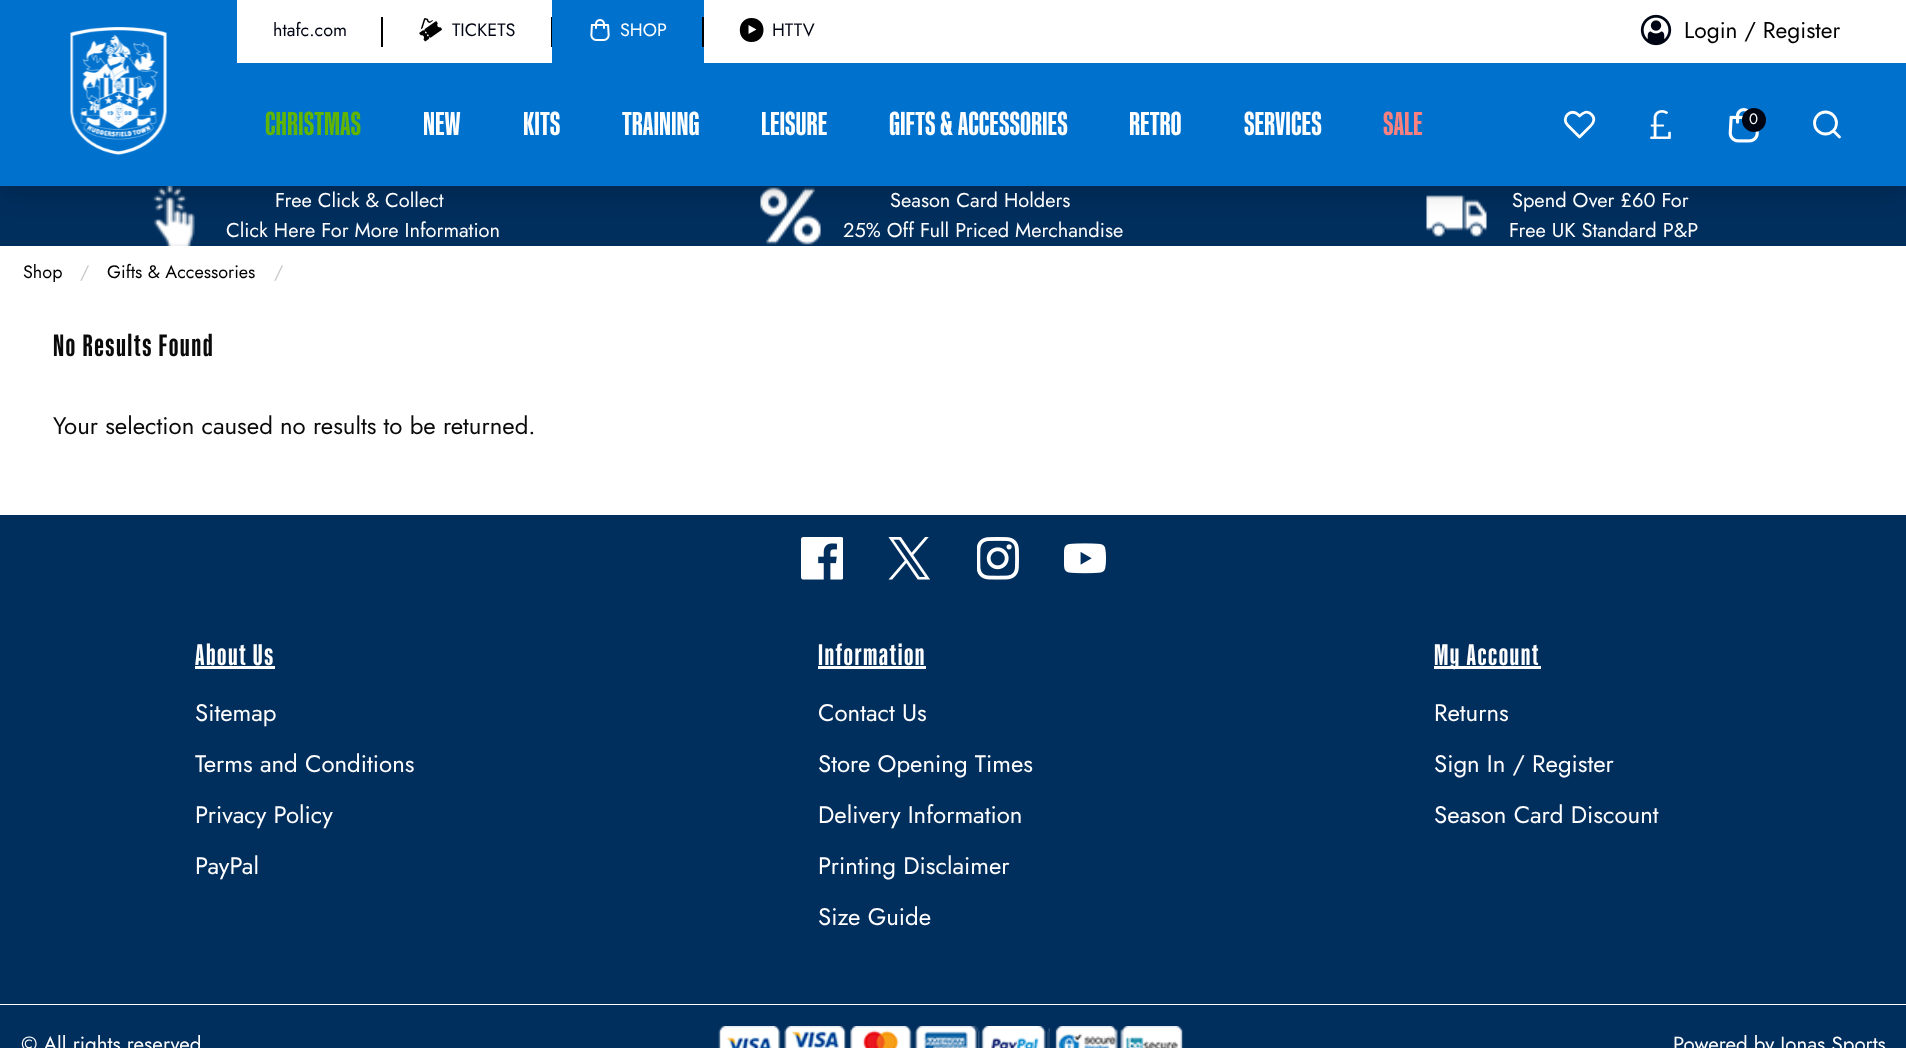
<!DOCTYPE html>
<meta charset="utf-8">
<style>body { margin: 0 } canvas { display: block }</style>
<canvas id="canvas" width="1906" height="1048"></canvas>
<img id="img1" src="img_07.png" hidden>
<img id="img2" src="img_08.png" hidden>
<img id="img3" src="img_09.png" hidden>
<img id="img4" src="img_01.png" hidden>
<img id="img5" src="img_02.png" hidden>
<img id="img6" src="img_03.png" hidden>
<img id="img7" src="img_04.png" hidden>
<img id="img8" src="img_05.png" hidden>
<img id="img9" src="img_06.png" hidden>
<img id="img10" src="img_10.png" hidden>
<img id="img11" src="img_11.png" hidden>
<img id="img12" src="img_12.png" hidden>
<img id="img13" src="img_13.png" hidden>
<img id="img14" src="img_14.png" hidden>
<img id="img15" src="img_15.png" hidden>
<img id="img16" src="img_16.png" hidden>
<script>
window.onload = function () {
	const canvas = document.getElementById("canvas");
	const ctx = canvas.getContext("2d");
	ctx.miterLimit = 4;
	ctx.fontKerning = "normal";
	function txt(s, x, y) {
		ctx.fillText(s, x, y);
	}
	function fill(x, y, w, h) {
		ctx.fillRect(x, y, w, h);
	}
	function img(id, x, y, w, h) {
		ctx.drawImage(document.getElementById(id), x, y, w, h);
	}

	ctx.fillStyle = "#FFFFFF";
	fill(0, 0, 1906, 1048);
	ctx.fillStyle = "#002E5D";
	fill(0, 186, 1906, 60);
	img("img1", 152, 186, 43, 60);
	img("img2", 760, 187, 61, 58);
	img("img3", 1426, 195, 61, 42);
	ctx.fillStyle = "rgba(0, 0, 0, 0.05)";
	ctx.filter = "blur(4.5px)";
	ctx.beginPath();
	ctx.rect(3, 6, 1901, 183);
	ctx.fill();
	ctx.filter = "none";
	ctx.fillStyle = "rgba(0, 0, 0, 0.1)";
	ctx.filter = "blur(11px)";
	ctx.beginPath();
	ctx.rect(5, 17, 1897, 180);
	ctx.fill();
	ctx.filter = "none";
	ctx.fillStyle = "#0072CE";
	fill(0, 0, 237, 63);
	ctx.fillStyle = "#FFFFFF";
	fill(237, 0, 1669, 63);
	ctx.fillStyle = "#000000";
	fill(381, 17, 2, 30);
	img("img4", 419, 18, 23, 24);
	fill(551, 17, 1, 30);
	ctx.fillStyle = "#0072CE";
	fill(552, 0, 152, 63);
	img("img5", 590, 19, 20, 22);
	ctx.fillStyle = "#000000";
	fill(702, 17, 2, 30);
	ctx.beginPath();
	ctx.moveTo(751.5, 42);
	ctx.bezierCurveTo(736, 42, 736, 18, 751.5, 18);
	ctx.bezierCurveTo(767.5, 18, 767.5, 42, 751.5, 42);
	ctx.closePath();
	ctx.moveTo(748.5, 25);
	ctx.lineTo(756.5, 29.5);
	ctx.lineTo(748.5, 34);
	ctx.closePath();
	ctx.fill("evenodd");
	img("img6", 1640, 14, 32, 32);
	ctx.fillStyle = "#0072CE";
	fill(0, 63, 1906, 123);
	img("img7", 70, 27, 97, 128);
	ctx.beginPath();
	ctx.moveTo(1591.5, 114.5);
	ctx.bezierCurveTo(1587.5, 110, 1583, 112.5, 1579.5, 116);
	ctx.lineTo(1578, 114.5);
	ctx.bezierCurveTo(1575, 111.5, 1570.5, 111.5, 1567.5, 114.5);
	ctx.bezierCurveTo(1564.5, 117.5, 1564.5, 122, 1567.5, 125);
	ctx.lineTo(1579.5, 137);
	ctx.lineTo(1586.5, 130);
	ctx.bezierCurveTo(1590.5, 126, 1597.5, 120.5, 1591.5, 114.5);
	ctx.closePath();
	ctx.strokeStyle = "#FFFFFF";
	ctx.lineWidth = 2.8;
	ctx.lineCap = "round";
	ctx.lineJoin = "round";
	ctx.stroke();
	img("img8", 1650, 110, 21, 29);
	img("img9", 1728, 108, 31, 35);
	ctx.fillStyle = "#000514";
	ctx.beginPath();
	ctx.arc(1754, 120, 12, 0, Math.PI * 2);
	ctx.fill();
	ctx.beginPath();
	ctx.arc(1825.5, 123, 11, 0, Math.PI * 2);
	ctx.stroke();
	ctx.beginPath();
	ctx.moveTo(1839.5, 137);
	ctx.lineTo(1833.5, 131);
	ctx.stroke();
	ctx.fillStyle = "#002E5D";
	fill(0, 515, 1906, 489);
	img("img10", 801, 537, 42, 43);
	img("img11", 888, 537, 42, 43);
	img("img12", 977, 537, 42, 43);
	img("img13", 1064, 543, 42, 31);
	ctx.fillStyle = "#FFFFFF";
	fill(195, 666, 80, 3);
	fill(818, 666, 108, 3);
	fill(1434, 666, 107, 3);
	ctx.fillStyle = "#002E5D";
	fill(0, 1005, 1906, 43);
	img("img14", 718, 1026, 332, 22);
	img("img15", 1055, 1026, 63, 22);
	img("img16", 1120, 1026, 63, 22);
	ctx.font = "18px Jost";
	ctx.fillStyle = "#000514";
	txt("htafc.com", 273, 36);
	txt("TICKETS", 452, 36);
	ctx.fillStyle = "#FFFFFF";
	txt("SHOP", 620, 36);
	ctx.fillStyle = "#000514";
	txt("HTTV", 772, 36);
	ctx.font = "22.75px Jost";
	ctx.fillStyle = "#000000";
	txt("Login / Register", 1684, 38);
	ctx.font = "bold 33.5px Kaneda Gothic";
	ctx.fillStyle = "#5FB404";
	txt("CHRISTMAS", 265, 135);
	ctx.fillStyle = "#FFFFFF";
	txt("NEW", 423, 135);
	txt("KITS", 523, 135);
	txt("TRAINING", 622, 135);
	txt("LEISURE", 761, 135);
	txt("GIFTS & ACCESSORIES", 889, 135);
	txt("RETRO", 1129, 135);
	txt("SERVICES", 1244, 135);
	ctx.fillStyle = "#F78181";
	txt("SALE", 1383, 135);
	ctx.font = "15px Jost";
	ctx.fillStyle = "#FFFFFF";
	txt("0", 1749, 124);
	ctx.font = "20px Jost";
	txt("Free Click & Collect", 275, 207);
	txt("Click Here For More Information", 226, 237);
	txt("Season Card Holders", 890, 207);
	txt("25% Off Full Priced Merchandise", 843, 237);
	txt("Spend Over £60 For", 1512, 207);
	txt("Free UK Standard P&P", 1509, 237);
	ctx.font = "18px Jost";
	ctx.fillStyle = "#000000";
	txt("Shop", 23, 278);
	ctx.fillStyle = "#CACACA";
	txt("/", 80, 278);
	ctx.fillStyle = "#000000";
	txt("Gifts & Accessories", 107, 278);
	ctx.fillStyle = "#CACACA";
	txt("/", 274, 278);
	ctx.letterSpacing = "1.5px";
	ctx.font = "bold 31px Kaneda Gothic";
	ctx.fillStyle = "#0A0A0A";
	txt("No Results Found", 53, 356);
	ctx.letterSpacing = "0px";
	ctx.font = "24px Jost";
	txt("Your selection caused no results to be returned.", 53, 434);
	ctx.letterSpacing = "1.5px";
	ctx.font = "bold 30px Kaneda Gothic";
	ctx.fillStyle = "#FFFFFF";
	txt("About Us", 195, 665);
	ctx.letterSpacing = "0px";
	ctx.font = "24px Jost";
	txt("Sitemap", 195, 721);
	txt("Terms and Conditions", 195, 772);
	txt("Privacy Policy", 195, 823);
	txt("PayPal", 195, 874);
	ctx.letterSpacing = "1.5px";
	ctx.font = "bold 30px Kaneda Gothic";
	txt("Information", 818, 665);
	ctx.letterSpacing = "0px";
	ctx.font = "24px Jost";
	txt("Contact Us", 818, 721);
	txt("Store Opening Times", 818, 772);
	txt("Delivery Information", 818, 823);
	txt("Printing Disclaimer", 818, 874);
	txt("Size Guide", 818, 925);
	ctx.letterSpacing = "1.5px";
	ctx.font = "bold 30px Kaneda Gothic";
	txt("My Account", 1434, 665);
	ctx.letterSpacing = "0px";
	ctx.font = "24px Jost";
	txt("Returns", 1434, 721);
	txt("Sign In / Register", 1434, 772);
	txt("Season Card Discount", 1434, 823);
	ctx.font = "20.5px Jost";
	txt("© All rights reserved", 21, 1051);
	txt("Powered by Jonas Sports", 1673, 1051);
};
</script>
